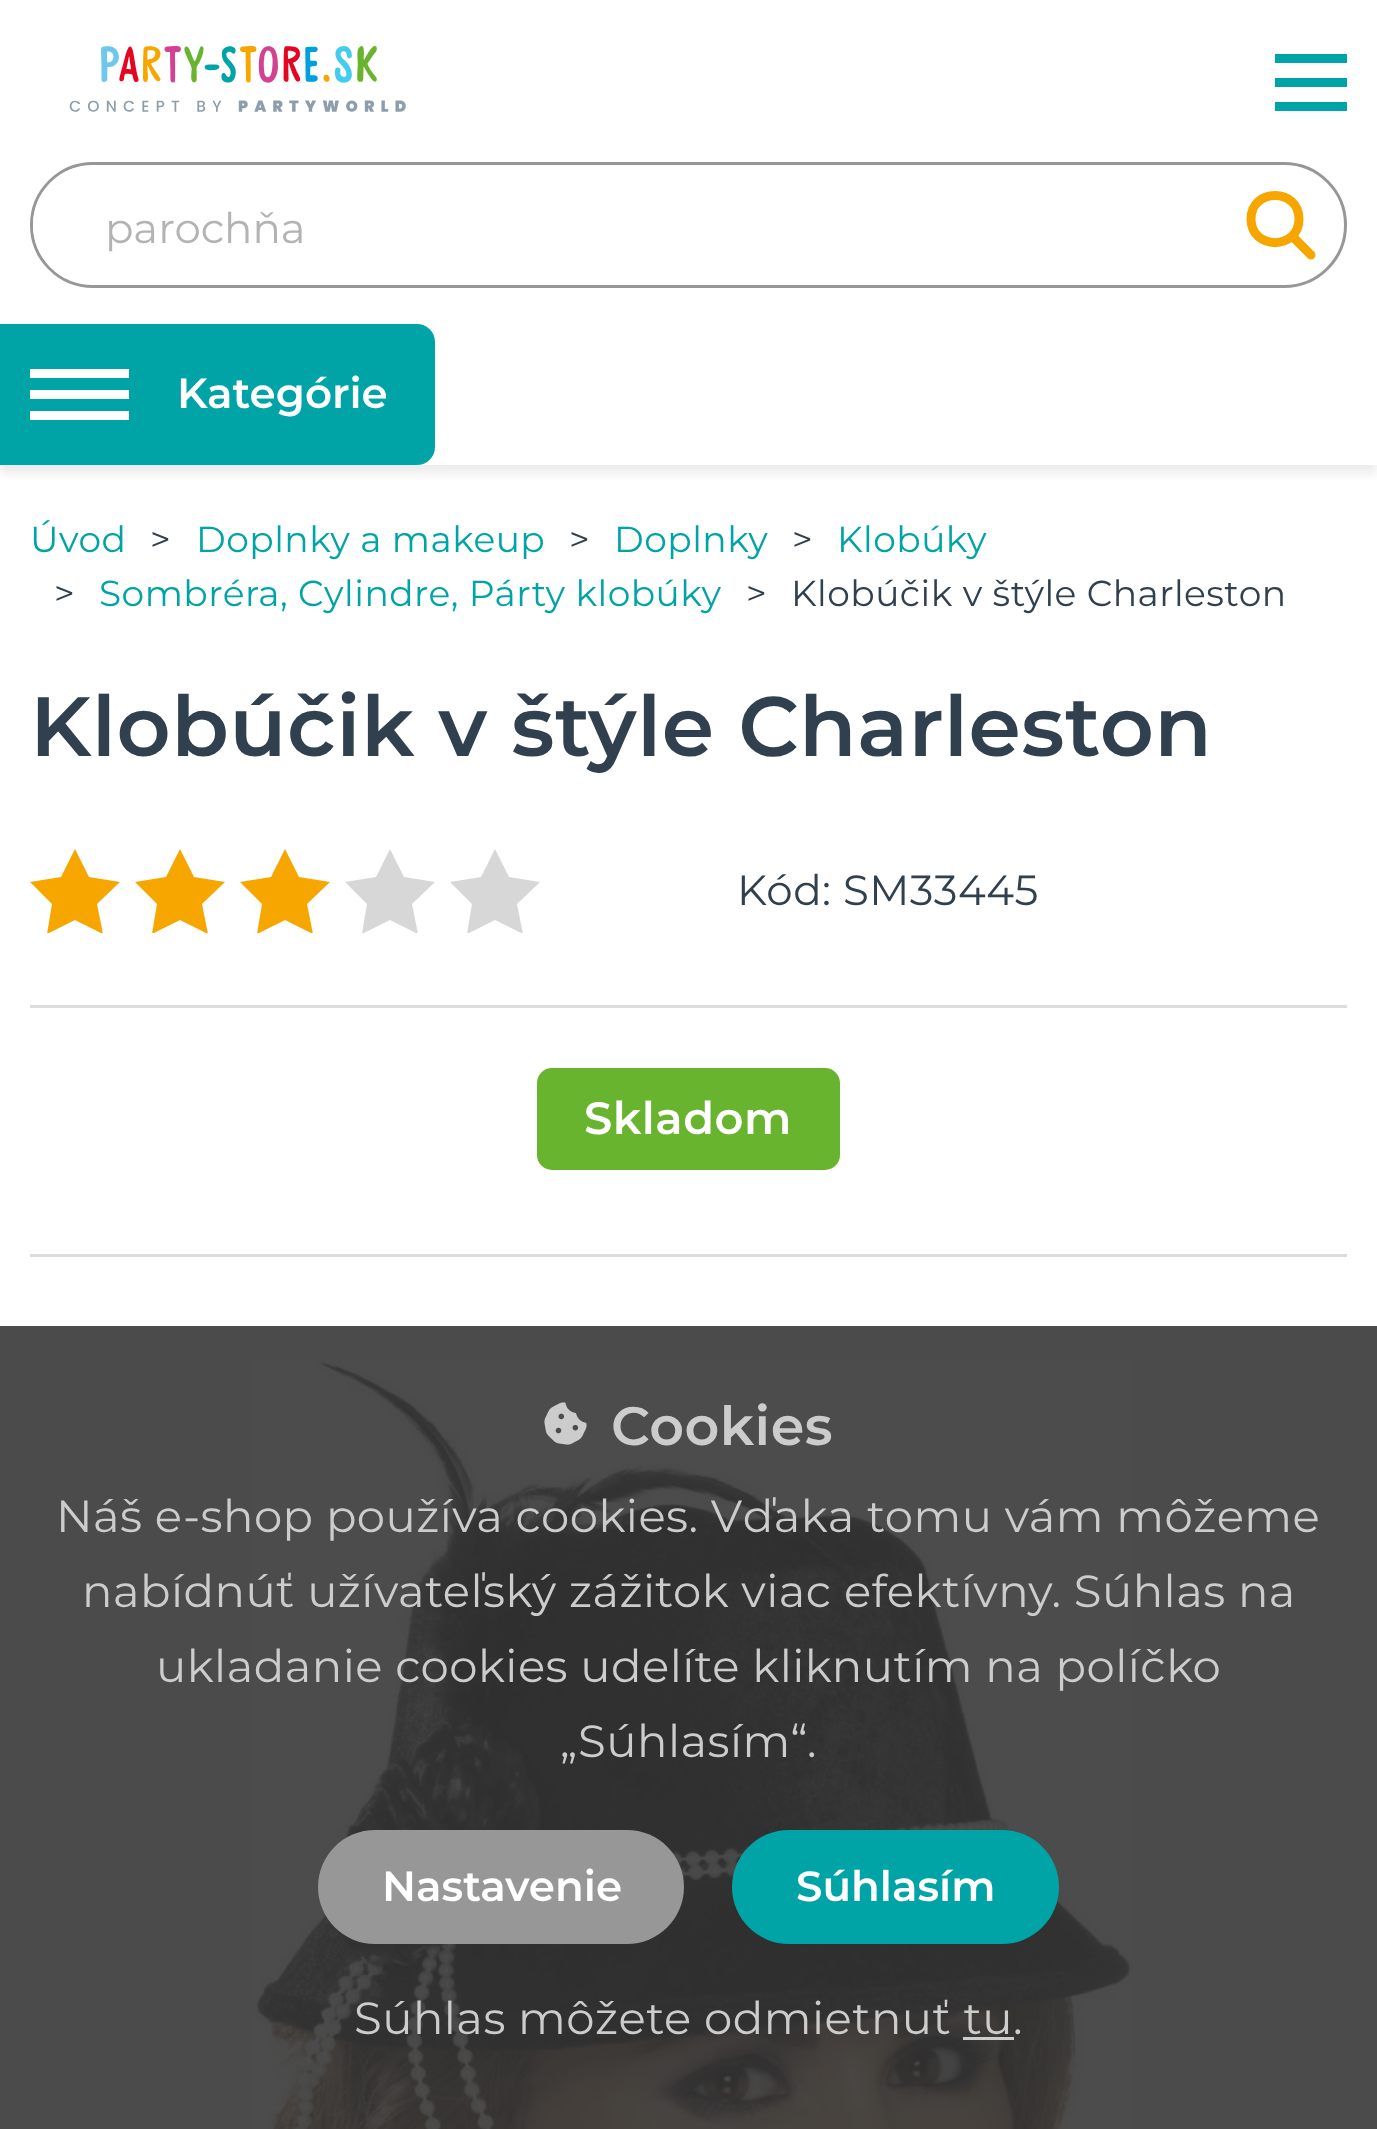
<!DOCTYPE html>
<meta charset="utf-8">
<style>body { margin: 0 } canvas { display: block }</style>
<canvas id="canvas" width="1377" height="2129"></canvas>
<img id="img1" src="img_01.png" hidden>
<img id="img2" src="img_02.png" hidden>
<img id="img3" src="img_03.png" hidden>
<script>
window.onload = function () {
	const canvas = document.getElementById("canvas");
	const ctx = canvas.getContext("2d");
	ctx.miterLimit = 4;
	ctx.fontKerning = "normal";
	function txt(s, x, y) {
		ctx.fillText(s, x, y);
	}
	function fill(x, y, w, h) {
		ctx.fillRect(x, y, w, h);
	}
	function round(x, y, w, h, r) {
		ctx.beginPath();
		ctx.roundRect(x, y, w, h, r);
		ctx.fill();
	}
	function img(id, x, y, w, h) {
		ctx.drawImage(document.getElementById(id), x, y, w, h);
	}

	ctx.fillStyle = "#FFFFFF";
	fill(0, 0, 1377, 2129);
	ctx.fillStyle = "#4B4B4B";
	fill(0, 1326, 1377, 803);
	img("img1", 69, 46, 337, 66);
	ctx.beginPath();
	ctx.roundRect(31.5, 163.5, 1314, 123, 61.5);
	ctx.strokeStyle = "#979797";
	ctx.lineWidth = 3;
	ctx.stroke();
	ctx.save();
	ctx.beginPath();
	ctx.roundRect(33, 165, 1311, 120, 60);
	ctx.clip();
	ctx.fillStyle = "#FFFFFF";
	round(33, 168, 1185, 111, 15);
	ctx.restore();
	ctx.beginPath();
	ctx.moveTo(1299, 219);
	ctx.bezierCurveTo(1299, 250.5, 1251, 250.5, 1251, 219);
	ctx.bezierCurveTo(1251, 187.5, 1299, 187.5, 1299, 219);
	ctx.closePath();
	ctx.strokeStyle = "#F7A600";
	ctx.lineWidth = 9;
	ctx.lineCap = "round";
	ctx.lineJoin = "round";
	ctx.stroke();
	ctx.beginPath();
	ctx.moveTo(1311, 255);
	ctx.lineTo(1293, 237);
	ctx.stroke();
	ctx.save();
	ctx.beginPath();
	ctx.rect(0, 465, 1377, 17);
	ctx.clip();
	ctx.fillStyle = "rgba(220, 220, 220, 0.5)";
	ctx.filter = "blur(4.5px)";
	ctx.beginPath();
	ctx.rect(0, 333, 1377, 141);
	ctx.fill();
	ctx.filter = "none";
	ctx.restore();
	ctx.fillStyle = "#00A4A6";
	fill(1275, 54, 72, 9);
	fill(1275, 78, 72, 9);
	fill(1275, 102, 72, 9);
	fill(0, 324, 30, 141);
	ctx.beginPath();
	ctx.roundRect(30, 324, 405, 141, [0, 18, 18, 0]);
	ctx.fill();
	ctx.fillStyle = "#FFFFFF";
	fill(30, 369, 99, 9);
	fill(30, 390, 99, 9);
	fill(30, 411, 99, 9);
	ctx.save();
	ctx.beginPath();
	ctx.rect(30, 849, 90, 84);
	ctx.clip();
	ctx.fillStyle = "#F7A600";
	ctx.beginPath();
	ctx.moveTo(75, 849);
	ctx.lineTo(89, 877);
	ctx.lineTo(120, 882);
	ctx.lineTo(97, 904);
	ctx.lineTo(103, 934);
	ctx.lineTo(75, 920);
	ctx.lineTo(47, 934);
	ctx.lineTo(52, 904);
	ctx.lineTo(30, 882);
	ctx.lineTo(61, 877);
	ctx.closePath();
	ctx.fill();
	ctx.restore();
	ctx.save();
	ctx.beginPath();
	ctx.rect(135, 849, 90, 84);
	ctx.clip();
	ctx.fillStyle = "#F7A600";
	ctx.beginPath();
	ctx.moveTo(180, 849);
	ctx.lineTo(194, 877);
	ctx.lineTo(225, 882);
	ctx.lineTo(202, 904);
	ctx.lineTo(208, 934);
	ctx.lineTo(180, 920);
	ctx.lineTo(152, 934);
	ctx.lineTo(157, 904);
	ctx.lineTo(135, 882);
	ctx.lineTo(166, 877);
	ctx.closePath();
	ctx.fill();
	ctx.restore();
	ctx.save();
	ctx.beginPath();
	ctx.rect(240, 849, 90, 84);
	ctx.clip();
	ctx.fillStyle = "#F7A600";
	ctx.beginPath();
	ctx.moveTo(285, 849);
	ctx.lineTo(299, 877);
	ctx.lineTo(330, 882);
	ctx.lineTo(307, 904);
	ctx.lineTo(313, 934);
	ctx.lineTo(285, 920);
	ctx.lineTo(257, 934);
	ctx.lineTo(262, 904);
	ctx.lineTo(240, 882);
	ctx.lineTo(271, 877);
	ctx.closePath();
	ctx.fill();
	ctx.restore();
	ctx.save();
	ctx.beginPath();
	ctx.rect(345, 849, 90, 84);
	ctx.clip();
	ctx.fillStyle = "#D7D7D7";
	ctx.beginPath();
	ctx.moveTo(390, 849);
	ctx.lineTo(404, 877);
	ctx.lineTo(435, 882);
	ctx.lineTo(412, 904);
	ctx.lineTo(418, 934);
	ctx.lineTo(390, 920);
	ctx.lineTo(362, 934);
	ctx.lineTo(367, 904);
	ctx.lineTo(345, 882);
	ctx.lineTo(376, 877);
	ctx.closePath();
	ctx.fill();
	ctx.restore();
	ctx.save();
	ctx.beginPath();
	ctx.rect(450, 849, 90, 84);
	ctx.clip();
	ctx.fillStyle = "#D7D7D7";
	ctx.beginPath();
	ctx.moveTo(495, 849);
	ctx.lineTo(509, 877);
	ctx.lineTo(540, 882);
	ctx.lineTo(517, 904);
	ctx.lineTo(523, 934);
	ctx.lineTo(495, 920);
	ctx.lineTo(467, 934);
	ctx.lineTo(472, 904);
	ctx.lineTo(450, 882);
	ctx.lineTo(481, 877);
	ctx.closePath();
	ctx.fill();
	ctx.restore();
	ctx.fillStyle = "#DCDCDC";
	fill(30, 1005, 1317, 3);
	fill(30, 1254, 1317, 3);
	ctx.fillStyle = "#69B42E";
	round(537, 1068, 303, 102, 15);
	img("img2", 252, 1360, 879, 769);
	img("img3", 544, 1402, 43, 43);
	ctx.fillStyle = "#979797";
	round(318, 1830, 366, 114, 57);
	ctx.fillStyle = "#00A4A6";
	round(732, 1830, 327, 114, 57);
	ctx.fillStyle = "#CCCCCC";
	fill(963, 2037, 51, 3);
	ctx.font = "42px Montserrat";
	ctx.fillStyle = "#B3B3B3";
	txt("parochňa", 105, 243);
	ctx.font = "600 42px Montserrat";
	ctx.fillStyle = "#FFFFFF";
	txt("Kategórie", 177, 408);
	ctx.letterSpacing = "0.48px";
	ctx.font = "36px Montserrat";
	ctx.fillStyle = "#00A4A6";
	txt("Úvod", 30, 552);
	ctx.fillStyle = "#31404E";
	txt(">", 150, 552);
	ctx.fillStyle = "#00A4A6";
	txt("Doplnky a makeup", 196, 552);
	ctx.fillStyle = "#31404E";
	txt(">", 569, 552);
	ctx.fillStyle = "#00A4A6";
	txt("Doplnky", 614, 552);
	ctx.fillStyle = "#31404E";
	txt(">", 792, 552);
	ctx.fillStyle = "#00A4A6";
	txt("Klobúky", 837, 552);
	ctx.fillStyle = "#31404E";
	txt(">", 54, 606);
	ctx.fillStyle = "#00A4A6";
	txt("Sombréra, Cylindre, Párty klobúky", 99, 606);
	ctx.fillStyle = "#31404E";
	txt(">", 746, 606);
	txt("Klobúčik v štýle Charleston", 791, 606);
	ctx.font = "600 84px Montserrat";
	txt("Klobúčik v štýle Charleston", 30, 756);
	ctx.font = "42px Montserrat";
	txt("Kód: SM33445", 737, 905);
	ctx.font = "600 45px Montserrat";
	ctx.fillStyle = "#FFFFFF";
	txt("Skladom", 584, 1134);
	ctx.font = "600 54px Montserrat";
	ctx.fillStyle = "#CCCCCC";
	txt("Cookies", 611, 1445);
	ctx.font = "45px Montserrat";
	txt("Náš e-shop používa cookies. Vďaka tomu vám môžeme", 56, 1532);
	txt("nabídnúť užívateľský zážitok viac efektívny. Súhlas na", 82, 1607);
	txt("ukladanie cookies udelíte kliknutím na políčko", 156, 1682);
	txt("„Súhlasím“.", 560, 1757);
	ctx.letterSpacing = "0px";
	ctx.font = "600 42px Montserrat";
	ctx.fillStyle = "#FFFFFF";
	txt("Nastavenie", 382, 1901);
	txt("Súhlasím", 796, 1901);
	ctx.letterSpacing = "0.48px";
	ctx.font = "45px Montserrat";
	ctx.fillStyle = "#CCCCCC";
	txt("Súhlas môžete odmietnuť tu.", 354, 2034);
};
</script>
